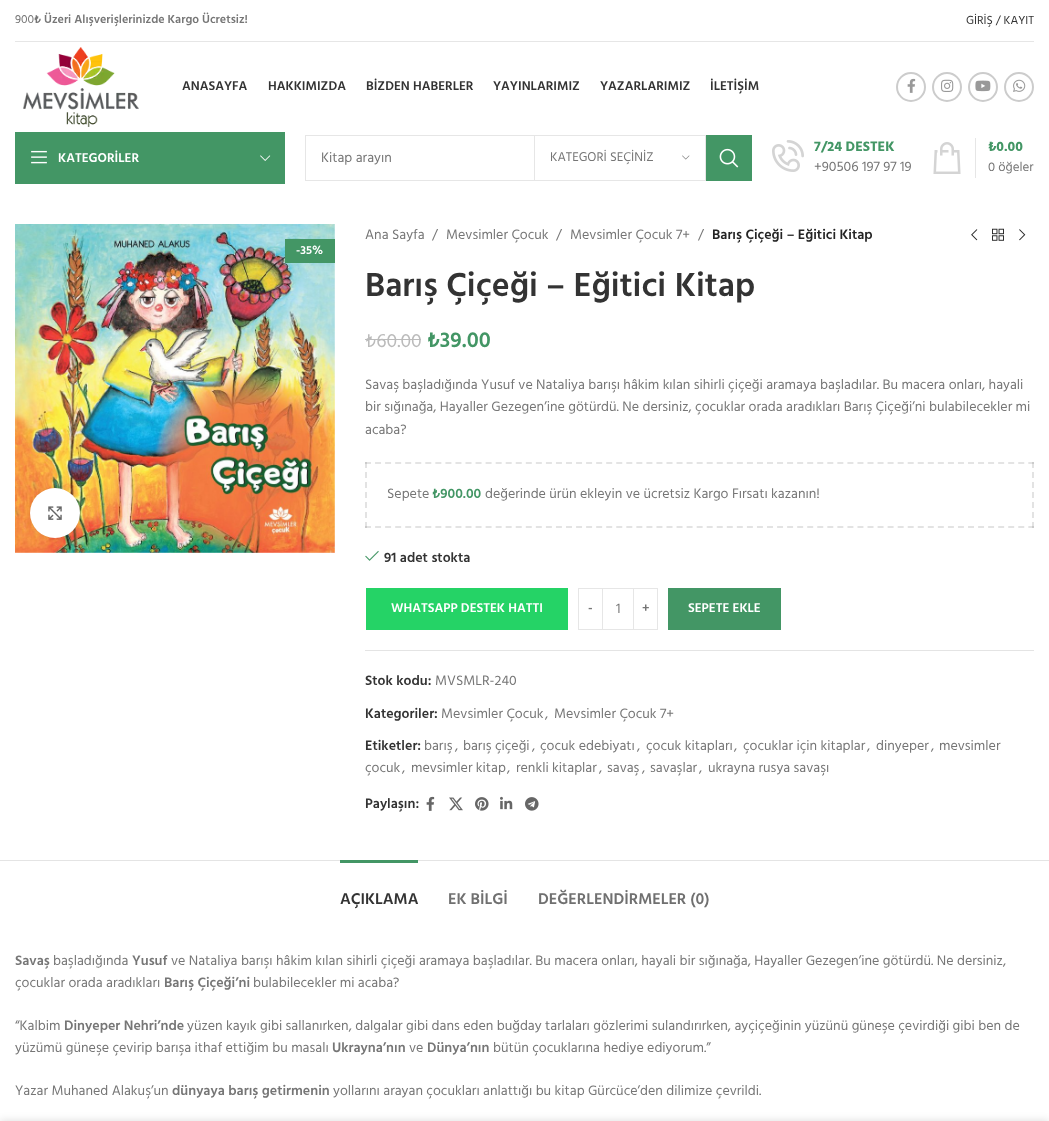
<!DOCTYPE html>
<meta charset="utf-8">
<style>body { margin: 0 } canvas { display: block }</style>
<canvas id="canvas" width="1049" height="1121"></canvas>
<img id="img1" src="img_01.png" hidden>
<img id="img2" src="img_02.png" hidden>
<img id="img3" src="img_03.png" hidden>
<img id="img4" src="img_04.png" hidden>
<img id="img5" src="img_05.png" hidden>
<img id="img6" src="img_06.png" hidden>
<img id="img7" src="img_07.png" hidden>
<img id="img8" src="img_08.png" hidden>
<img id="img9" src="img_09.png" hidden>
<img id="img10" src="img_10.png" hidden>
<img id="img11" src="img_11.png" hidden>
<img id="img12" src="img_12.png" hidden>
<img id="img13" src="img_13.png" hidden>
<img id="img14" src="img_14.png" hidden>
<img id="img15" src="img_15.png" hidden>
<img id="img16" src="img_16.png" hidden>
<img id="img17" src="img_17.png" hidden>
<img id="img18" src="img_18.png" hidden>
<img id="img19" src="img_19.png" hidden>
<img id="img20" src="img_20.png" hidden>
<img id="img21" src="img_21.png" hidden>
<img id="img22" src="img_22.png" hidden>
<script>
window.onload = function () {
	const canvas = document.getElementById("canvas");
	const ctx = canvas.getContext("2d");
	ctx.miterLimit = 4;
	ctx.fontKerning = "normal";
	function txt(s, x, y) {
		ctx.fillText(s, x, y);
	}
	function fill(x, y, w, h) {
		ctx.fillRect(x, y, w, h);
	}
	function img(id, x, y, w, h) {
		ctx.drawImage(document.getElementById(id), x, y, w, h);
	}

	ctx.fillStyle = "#FFFFFF";
	fill(0, 0, 1049, 1121);
	ctx.fillStyle = "#E6E6E6";
	fill(15, 41, 1019, 1);
	img("img1", 23, 47, 116, 80);
	ctx.beginPath();
	ctx.arc(911, 87, 14, 0, Math.PI * 2);
	ctx.strokeStyle = "#CCCCCC";
	ctx.lineWidth = 2;
	ctx.stroke();
	img("img2", 907, 78, 9, 15);
	ctx.beginPath();
	ctx.arc(947, 87, 14, 0, Math.PI * 2);
	ctx.stroke();
	img("img3", 941, 79, 13, 13);
	ctx.beginPath();
	ctx.arc(983, 87, 14, 0, Math.PI * 2);
	ctx.stroke();
	img("img4", 975, 80, 16, 12);
	ctx.beginPath();
	ctx.arc(1019, 87, 14, 0, Math.PI * 2);
	ctx.stroke();
	img("img5", 1013, 79, 13, 13);
	ctx.fillStyle = "#439665";
	fill(15, 132, 270, 52);
	img("img6", 31, 150, 16, 14);
	img("img7", 260, 155, 11, 6);
	ctx.strokeStyle = "#E6E6E6";
	ctx.lineWidth = 1;
	ctx.strokeRect(305.5, 135.5, 446, 45);
	ctx.fillStyle = "#E6E6E6";
	fill(705, 136, 1, 44);
	fill(534, 136, 1, 44);
	img("img8", 682, 155, 8, 5);
	ctx.fillStyle = "#439665";
	fill(706, 135, 46, 46);
	img("img9", 719, 148, 20, 20);
	img("img10", 772, 140, 32, 32);
	img("img11", 933, 142, 28, 32);
	ctx.fillStyle = "#E6E6E6";
	fill(975, 138, 1, 40);
	img("img12", 15, 224, 320, 329);
	ctx.fillStyle = "#439665";
	fill(285, 239, 50, 24);
	ctx.fillStyle = "rgba(0, 0, 0, 0.08)";
	ctx.filter = "blur(2.5px)";
	ctx.beginPath();
	ctx.roundRect(30, 488, 50, 50, 25);
	ctx.fill();
	ctx.filter = "none";
	ctx.fillStyle = "#FFFFFF";
	ctx.beginPath();
	ctx.arc(55, 513, 25, 0, Math.PI * 2);
	ctx.fill();
	img("img13", 48, 506, 14, 14);
	img("img14", 971, 229, 7, 12);
	img("img15", 992, 228, 12, 13);
	img("img16", 1019, 229, 7, 12);
	ctx.fillStyle = "#BBBBBB";
	fill(365, 339, 56, 1);
	ctx.beginPath();
	ctx.moveTo(365, 463);
	ctx.lineTo(1034, 463);
	ctx.strokeStyle = "#E4E4E4";
	ctx.lineWidth = 2;
	ctx.setLineDash([6, 4.05]);
	ctx.stroke();
	ctx.beginPath();
	ctx.moveTo(1033, 462);
	ctx.lineTo(1033, 528);
	ctx.strokeStyle = "rgba(0, 0, 0, 0.11)";
	ctx.setLineDash([6, 4]);
	ctx.stroke();
	ctx.beginPath();
	ctx.moveTo(365, 527);
	ctx.lineTo(1034, 527);
	ctx.setLineDash([6, 4.05]);
	ctx.stroke();
	ctx.beginPath();
	ctx.moveTo(366, 462);
	ctx.lineTo(366, 528);
	ctx.setLineDash([6, 4]);
	ctx.stroke();
	img("img17", 365, 550, 14, 11);
	ctx.fillStyle = "#25D366";
	fill(366, 588, 202, 42);
	ctx.strokeStyle = "#E6E6E6";
	ctx.lineWidth = 1;
	ctx.setLineDash([]);
	ctx.strokeRect(578.5, 588.5, 24, 41);
	ctx.fillStyle = "#E6E6E6";
	fill(603, 588, 30, 1);
	fill(603, 629, 30, 1);
	ctx.strokeRect(633.5, 588.5, 24, 41);
	ctx.fillStyle = "#439665";
	fill(668, 588, 113, 42);
	ctx.fillStyle = "#E4E4E4";
	fill(365, 650, 669, 1);
	img("img18", 426, 796, 9, 15);
	img("img19", 449, 797, 14, 14);
	img("img20", 475, 797, 14, 14);
	img("img21", 500, 796, 13, 14);
	img("img22", 525, 797, 14, 14);
	fill(0, 860, 1049, 1);
	ctx.fillStyle = "#439665";
	fill(340, 860, 78, 3);
	ctx.fillStyle = "rgba(0, 0, 0, 0.14)";
	ctx.filter = "blur(4.5px)";
	ctx.beginPath();
	ctx.rect(0, 1121, 1049, 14);
	ctx.fill();
	ctx.filter = "none";
	ctx.font = "12px Hind";
	ctx.fillStyle = "#767676";
	txt("900", 15, 23);
	ctx.font = "600 12px Hind";
	txt("₺ Üzeri Alışverişlerinizde Kargo Ücretsiz!", 34, 23);
	ctx.font = "12px Hind";
	ctx.fillStyle = "#333333";
	txt("GİRİŞ / KAYIT", 966, 24);
	ctx.font = "600 13px Hind";
	txt("ANASAYFA", 182, 90);
	txt("HAKKIMIZDA", 268, 90);
	txt("BİZDEN HABERLER", 366, 90);
	txt("YAYINLARIMIZ", 493, 90);
	txt("YAZARLARIMIZ", 600, 90);
	txt("İLETİŞİM", 710, 90);
	ctx.fillStyle = "#FFFFFF";
	txt("KATEGORİLER", 58, 162);
	ctx.font = "14px Hind";
	ctx.fillStyle = "#767676";
	txt("Kitap arayın", 321, 162);
	ctx.font = "13px Hind";
	txt("KATEGORİ SEÇİNİZ", 550, 161);
	ctx.font = "bold 14px Hind";
	ctx.fillStyle = "#439665";
	txt("7/24 DESTEK", 814, 151);
	ctx.font = "14px Hind";
	ctx.fillStyle = "#767676";
	txt("+90506 197 97 19", 814, 171);
	ctx.font = "bold 14px Hind";
	ctx.fillStyle = "#439665";
	txt("₺0.00", 988, 151);
	ctx.font = "13px Hind";
	ctx.fillStyle = "#767676";
	txt("0 öğeler", 988, 171);
	ctx.font = "600 12px Hind";
	ctx.fillStyle = "#FFFFFF";
	txt("-35%", 296, 254);
	ctx.font = "14px Hind";
	ctx.fillStyle = "#767676";
	txt("Ana Sayfa", 365, 239);
	txt("/", 432, 239);
	txt("Mevsimler Çocuk", 446, 239);
	txt("/", 556, 239);
	txt("Mevsimler Çocuk 7+", 570, 239);
	txt("/", 698, 239);
	ctx.font = "600 14px Hind";
	ctx.fillStyle = "#242424";
	txt("Barış Çiçeği – Eğitici Kitap", 712, 239);
	ctx.font = "600 34px Hind";
	ctx.fillStyle = "#333333";
	txt("Barış Çiçeği – Eğitici Kitap", 365, 296);
	ctx.font = "19.5px Hind";
	ctx.fillStyle = "#BBBBBB";
	txt("₺60.00", 365, 347);
	ctx.font = "600 22px Hind";
	ctx.fillStyle = "#439665";
	txt("₺39.00", 427, 347);
	ctx.font = "14px Hind";
	ctx.fillStyle = "#767676";
	txt("Savaş başladığında Yusuf ve Nataliya barışı hâkim kılan sihirli çiçeği aramaya başladılar. Bu macera onları, hayali", 365, 389);
	txt("bir sığınağa, Hayaller Gezegen’ine götürdü. Ne dersiniz, çocuklar orada aradıkları Barış Çiçeği’ni bulabilecekler mi", 365, 411);
	txt("acaba?", 365, 434);
	txt("Sepete", 387, 498);
	ctx.font = "600 14px Hind";
	ctx.fillStyle = "#439665";
	txt("₺900.00", 432, 498);
	ctx.font = "14px Hind";
	ctx.fillStyle = "#767676";
	txt("değerinde ürün ekleyin ve ücretsiz Kargo Fırsatı kazanın!", 485, 498);
	ctx.font = "600 14px Hind";
	ctx.fillStyle = "#333333";
	txt("91 adet stokta", 384, 562);
	ctx.font = "600 13px Hind";
	ctx.fillStyle = "#FFFFFF";
	txt("WHATSAPP DESTEK HATTI", 391, 612);
	ctx.beginPath();
	ctx.moveTo(461, 615);
	ctx.bezierCurveTo(457.5, 611.5, 457.5, 606.5, 461, 603);
	ctx.strokeStyle = "#25D366";
	ctx.stroke();
	ctx.fillStyle = "#767676";
	txt("-", 588, 612);
	ctx.font = "14px Hind";
	txt("1", 616, 613);
	ctx.font = "600 13px Hind";
	txt("+", 642, 612);
	ctx.fillStyle = "#FFFFFF";
	txt("SEPETE EKLE", 688, 612);
	ctx.font = "600 14px Hind";
	ctx.fillStyle = "#333333";
	txt("Stok kodu:", 365, 685);
	ctx.font = "14px Hind";
	ctx.fillStyle = "#767676";
	txt("MVSMLR-240", 435, 685);
	ctx.font = "600 14px Hind";
	ctx.fillStyle = "#333333";
	txt("Kategoriler:", 365, 718);
	ctx.font = "14px Hind";
	ctx.fillStyle = "#767676";
	txt("Mevsimler Çocuk", 441, 718);
	txt(",", 545, 718);
	txt("Mevsimler Çocuk 7+", 554, 718);
	ctx.font = "600 14px Hind";
	ctx.fillStyle = "#333333";
	txt("Etiketler:", 365, 750);
	ctx.font = "14px Hind";
	ctx.fillStyle = "#767676";
	txt("barış", 424, 750);
	txt(",", 455, 750);
	txt("barış çiçeği", 463, 750);
	txt(",", 532, 750);
	txt("çocuk edebiyatı", 540, 750);
	txt(",", 637, 750);
	txt("çocuk kitapları", 646, 750);
	txt(",", 734, 750);
	txt("çocuklar için kitaplar", 743, 750);
	txt(",", 867, 750);
	txt("dinyeper", 876, 750);
	txt(",", 931, 750);
	txt("mevsimler", 939, 750);
	txt("çocuk", 365, 772);
	txt(",", 402, 772);
	txt("mevsimler kitap", 411, 772);
	txt(",", 507, 772);
	txt("renkli kitaplar", 516, 772);
	txt(",", 599, 772);
	txt("savaş", 607, 772);
	txt(",", 642, 772);
	txt("savaşlar", 650, 772);
	txt(",", 699, 772);
	txt("ukrayna rusya savaşı", 708, 772);
	ctx.font = "600 14px Hind";
	ctx.fillStyle = "#333333";
	txt("Paylaşın:", 365, 808);
	ctx.font = "600 16px Hind";
	txt("AÇIKLAMA", 340, 904);
	ctx.fillStyle = "#707070";
	txt("EK BİLGİ", 448, 904);
	txt("DEĞERLENDİRMELER (0)", 538, 904);
	ctx.font = "600 14px Hind";
	ctx.fillStyle = "#767676";
	txt("Savaş", 15, 965);
	ctx.font = "14px Hind";
	txt("başladığında", 53, 965);
	ctx.font = "600 14px Hind";
	txt("Yusuf", 132, 965);
	ctx.font = "14px Hind";
	txt("ve Nataliya barışı hâkim kılan sihirli çiçeği aramaya başladılar. Bu macera onları, hayali bir sığınağa, Hayaller Gezegen’ine götürdü. Ne dersiniz,", 171, 965);
	txt("çocuklar orada aradıkları", 15, 987);
	ctx.font = "600 14px Hind";
	txt("Barış Çiçeği’ni", 164, 987);
	ctx.font = "14px Hind";
	txt("bulabilecekler mi acaba?", 253, 987);
	txt("“Kalbim", 15, 1030);
	ctx.font = "600 14px Hind";
	txt("Dinyeper Nehri’nde", 64, 1030);
	ctx.font = "14px Hind";
	txt("yüzen kayık gibi sallanırken, dalgalar gibi dans eden buğday tarlaları gözlerimi sulandırırken, ayçiçeğinin yüzünü güneşe çevirdiği gibi ben de", 187, 1030);
	txt("yüzümü güneşe çevirip barışa ithaf ettiğim bu masalı", 15, 1052);
	ctx.font = "600 14px Hind";
	txt("Ukrayna’nın", 332, 1052);
	ctx.font = "14px Hind";
	txt("ve", 409, 1052);
	ctx.font = "600 14px Hind";
	txt("Dünya’nın", 427, 1052);
	ctx.font = "14px Hind";
	txt("bütün çocuklarına hediye ediyorum.”", 493, 1052);
	txt("Yazar Muhaned Alakuş’un", 15, 1095);
	ctx.font = "600 14px Hind";
	txt("dünyaya barış getirmenin", 172, 1095);
	ctx.font = "14px Hind";
	txt("yollarını arayan çocukları anlattığı bu kitap Gürcüce’den dilimize çevrildi.", 333, 1095);
};
</script>
